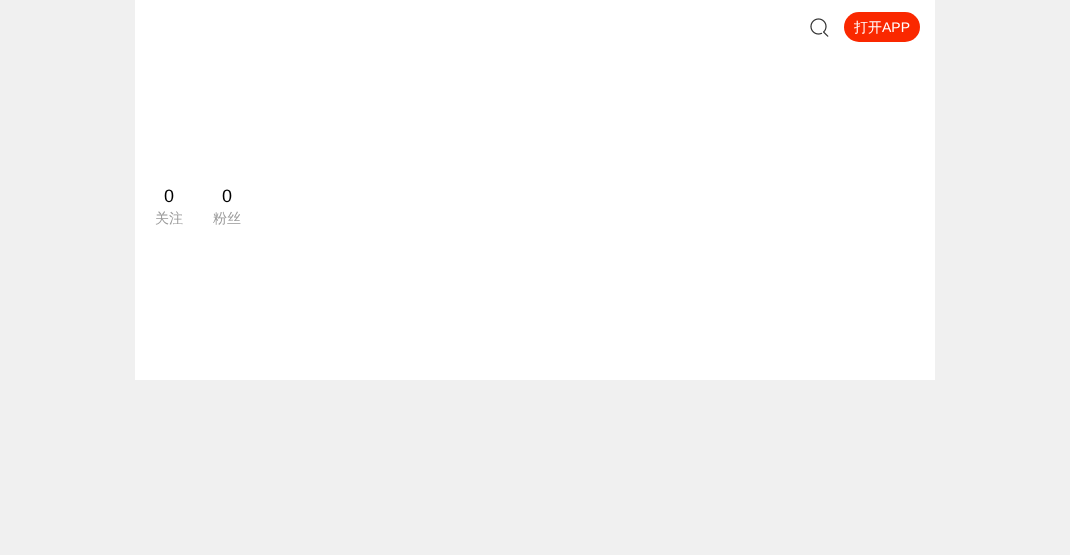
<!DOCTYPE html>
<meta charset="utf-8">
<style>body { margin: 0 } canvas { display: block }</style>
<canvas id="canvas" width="1070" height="555"></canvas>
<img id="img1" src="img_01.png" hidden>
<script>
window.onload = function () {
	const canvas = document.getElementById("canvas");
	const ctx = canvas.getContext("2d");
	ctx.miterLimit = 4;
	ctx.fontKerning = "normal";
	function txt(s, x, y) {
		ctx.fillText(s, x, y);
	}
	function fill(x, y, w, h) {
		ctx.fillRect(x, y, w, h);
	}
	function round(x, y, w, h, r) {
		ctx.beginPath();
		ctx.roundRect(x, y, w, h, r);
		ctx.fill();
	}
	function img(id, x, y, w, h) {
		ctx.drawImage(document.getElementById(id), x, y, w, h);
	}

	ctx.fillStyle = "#F0F0F0";
	fill(0, 0, 1070, 555);
	ctx.fillStyle = "#FFFFFF";
	fill(135, 0, 800, 380);
	img("img1", 810, 18, 19, 19);
	ctx.fillStyle = "#FA2800";
	round(844, 12, 76, 30, 15);
	ctx.font = "500 14px WenQuanYi Zen Hei";
	ctx.fillStyle = "#FFFFFF";
	txt("打开", 854, 32);
	ctx.font = "14px Liberation Sans";
	txt("APP", 882, 32);
	ctx.font = "18px Liberation Sans";
	ctx.fillStyle = "#000000";
	txt("0", 164, 202);
	ctx.font = "500 14px WenQuanYi Zen Hei";
	ctx.fillStyle = "#999999";
	txt("关注", 155, 223);
	ctx.font = "18px Liberation Sans";
	ctx.fillStyle = "#000000";
	txt("0", 222, 202);
	ctx.font = "500 14px WenQuanYi Zen Hei";
	ctx.fillStyle = "#999999";
	txt("粉丝", 213, 223);
};
</script>
